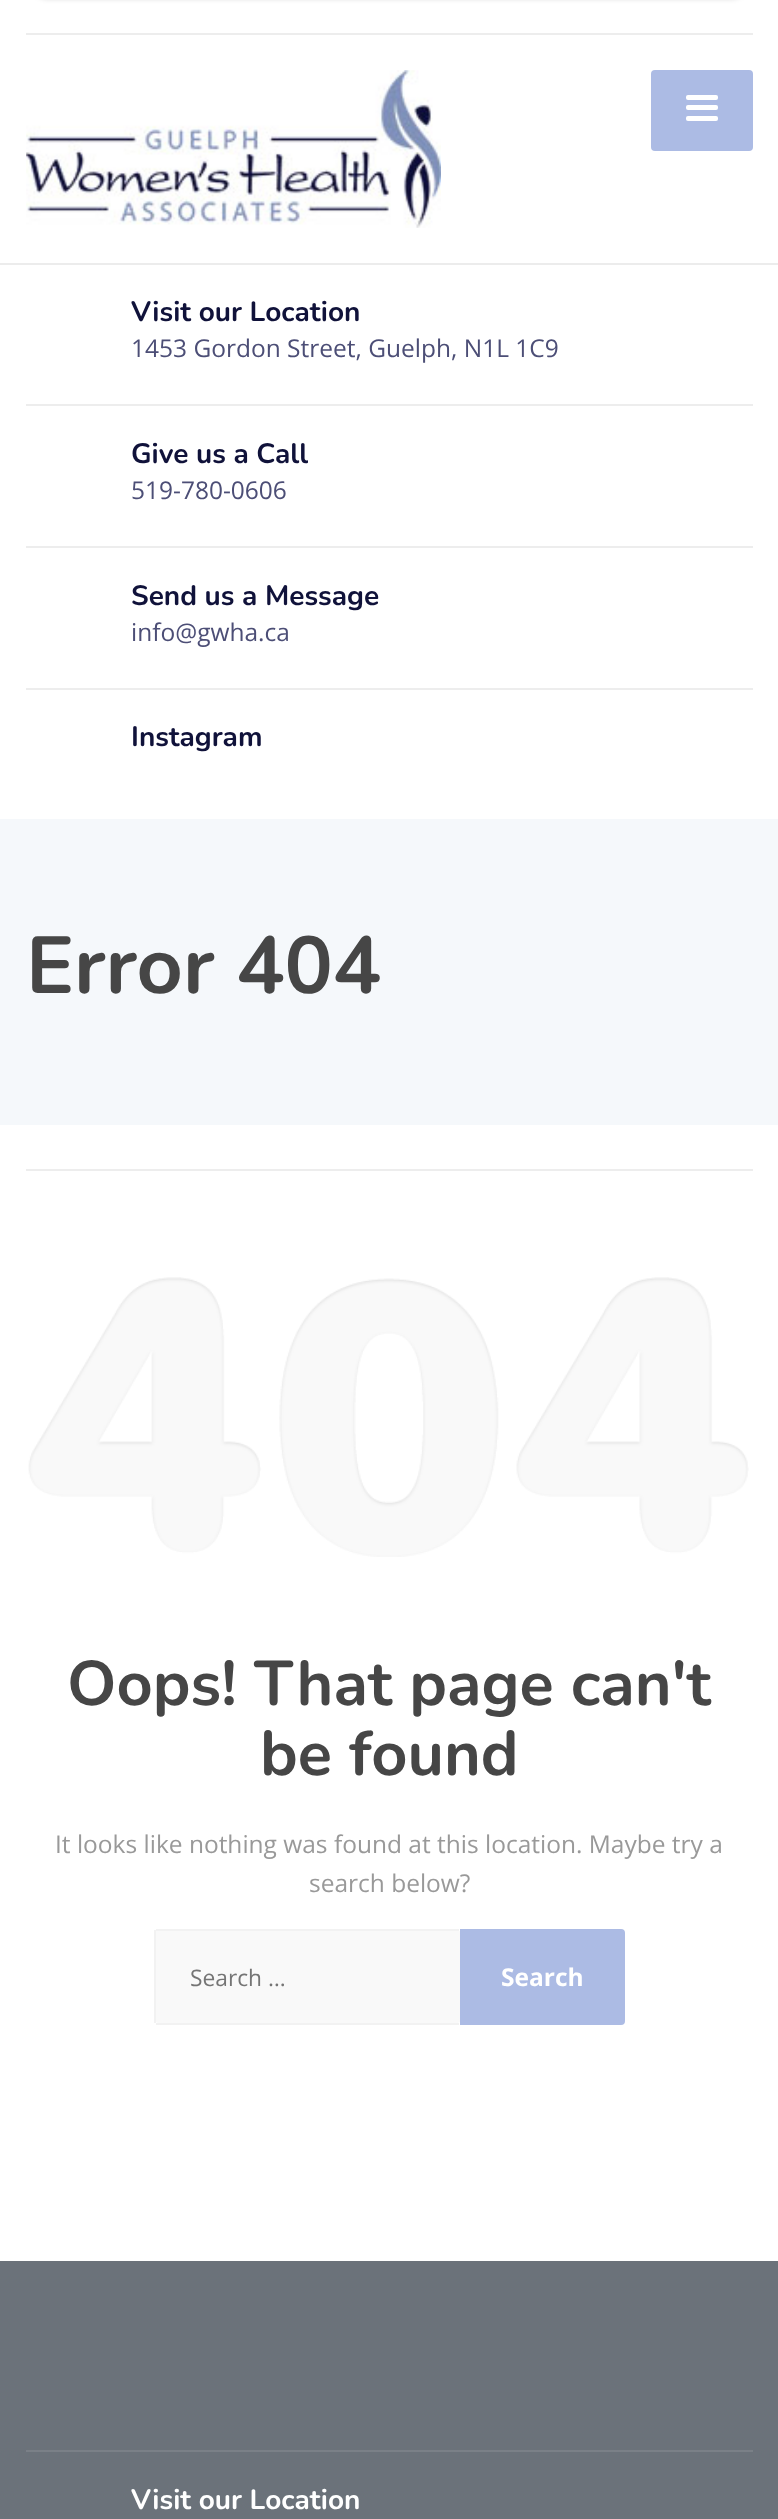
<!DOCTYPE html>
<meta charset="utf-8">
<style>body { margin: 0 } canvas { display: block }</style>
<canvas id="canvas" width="778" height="2519"></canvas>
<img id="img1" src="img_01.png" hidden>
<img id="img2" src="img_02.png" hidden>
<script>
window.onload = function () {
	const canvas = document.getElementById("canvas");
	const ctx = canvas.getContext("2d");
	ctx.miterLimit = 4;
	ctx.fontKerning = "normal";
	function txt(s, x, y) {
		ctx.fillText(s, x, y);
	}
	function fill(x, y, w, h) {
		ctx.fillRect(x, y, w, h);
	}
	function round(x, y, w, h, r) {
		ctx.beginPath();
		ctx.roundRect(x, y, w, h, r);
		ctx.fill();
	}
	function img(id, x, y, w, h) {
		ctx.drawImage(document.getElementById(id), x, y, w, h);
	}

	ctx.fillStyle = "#FFFFFF";
	fill(0, 0, 778, 2519);
	ctx.fillStyle = "#ECECEC";
	fill(0, 263, 778, 2);
	ctx.fillStyle = "#EDEDED";
	fill(26, 33, 727, 2);
	ctx.fillStyle = "rgba(0, 0, 0, 0.1)";
	ctx.filter = "blur(2px)";
	ctx.beginPath();
	ctx.roundRect(26, -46, 727, 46, 40);
	ctx.fill();
	ctx.filter = "none";
	img("img1", 26, 70, 415, 158);
	ctx.fillStyle = "#ACBBE4";
	round(651, 70, 102, 81, 4);
	ctx.fillStyle = "#FFFFFF";
	round(686, 95, 32, 5, 2);
	round(686, 105, 32, 5, 2);
	round(686, 116, 32, 5, 2);
	ctx.fillStyle = "#EDEDED";
	fill(26, 404, 727, 2);
	fill(26, 546, 727, 2);
	fill(26, 688, 727, 2);
	ctx.fillStyle = "#F5F8FB";
	fill(0, 819, 778, 306);
	ctx.fillStyle = "#EDEDED";
	fill(26, 1169, 727, 2);
	img("img2", 28, 1277, 721, 280);
	ctx.fillStyle = "#F9F9F9";
	ctx.beginPath();
	ctx.moveTo(158, 1930);
	ctx.lineTo(457, 1930);
	ctx.bezierCurveTo(459, 1930, 460, 1931, 460, 1932);
	ctx.lineTo(460, 2021);
	ctx.bezierCurveTo(460, 2022, 459, 2023, 457, 2023);
	ctx.lineTo(158, 2023);
	ctx.bezierCurveTo(157, 2023, 156, 2022, 156, 2021);
	ctx.lineTo(156, 1932);
	ctx.bezierCurveTo(156, 1931, 157, 1930, 158, 1930);
	ctx.closePath();
	ctx.fill();
	ctx.fillStyle = "#F2F2F2";
	fill(156, 1929, 303, 2);
	fill(156, 2023, 303, 2);
	fill(154, 1930, 2, 93);
	ctx.fillStyle = "#ACBBE4";
	ctx.beginPath();
	ctx.roundRect(460, 1929, 165, 96, [0, 4, 4, 0]);
	ctx.fill();
	ctx.fillStyle = "#6B727A";
	fill(0, 2261, 778, 258);
	ctx.fillStyle = "#7A8087";
	fill(26, 2450, 727, 2);
	ctx.font = "bold 28px Nunito";
	ctx.fillStyle = "#10123A";
	txt("Visit our Location", 131, 321);
	ctx.font = "24.5px Open Sans";
	ctx.fillStyle = "#4C4E76";
	txt("1453 Gordon Street, Guelph, N1L 1C9", 131, 357);
	ctx.save();
	ctx.beginPath();
	ctx.rect(131, 441, 177, 70);
	ctx.clip();
	ctx.font = "bold 28px Nunito";
	ctx.fillStyle = "#10123A";
	txt("Give us a Call", 131, 463);
	ctx.restore();
	txt("519-780-0606", 131, 499);
	ctx.font = "bold 28px Nunito";
	ctx.fillStyle = "#10123A";
	txt("Send us a Message", 131, 605);
	ctx.font = "24.5px Open Sans";
	ctx.fillStyle = "#4C4E76";
	txt("info@gwha.ca", 131, 641);
	ctx.font = "bold 28px Nunito";
	ctx.fillStyle = "#10123A";
	txt("Instagram", 131, 746);
	ctx.font = "bold 80.5px Nunito";
	ctx.fillStyle = "#464646";
	txt("Error 404", 26, 993);
	ctx.font = "bold 63px Nunito";
	txt("Oops! That page can't", 67, 1705);
	txt("be found", 260, 1775);
	ctx.font = "24.5px Open Sans";
	ctx.fillStyle = "#999999";
	txt("It looks like nothing was found at this location. Maybe try a", 55, 1853);
	txt("search below?", 309, 1892);
	ctx.font = "22.75px Open Sans";
	ctx.fillStyle = "#757575";
	txt("Search …", 190, 1986);
	ctx.font = "bold 24.5px Open Sans";
	ctx.fillStyle = "#FFFFFF";
	txt("Search", 501, 1986);
	ctx.font = "bold 28px Nunito";
	txt("Visit our Location", 131, 2509);
};
</script>
